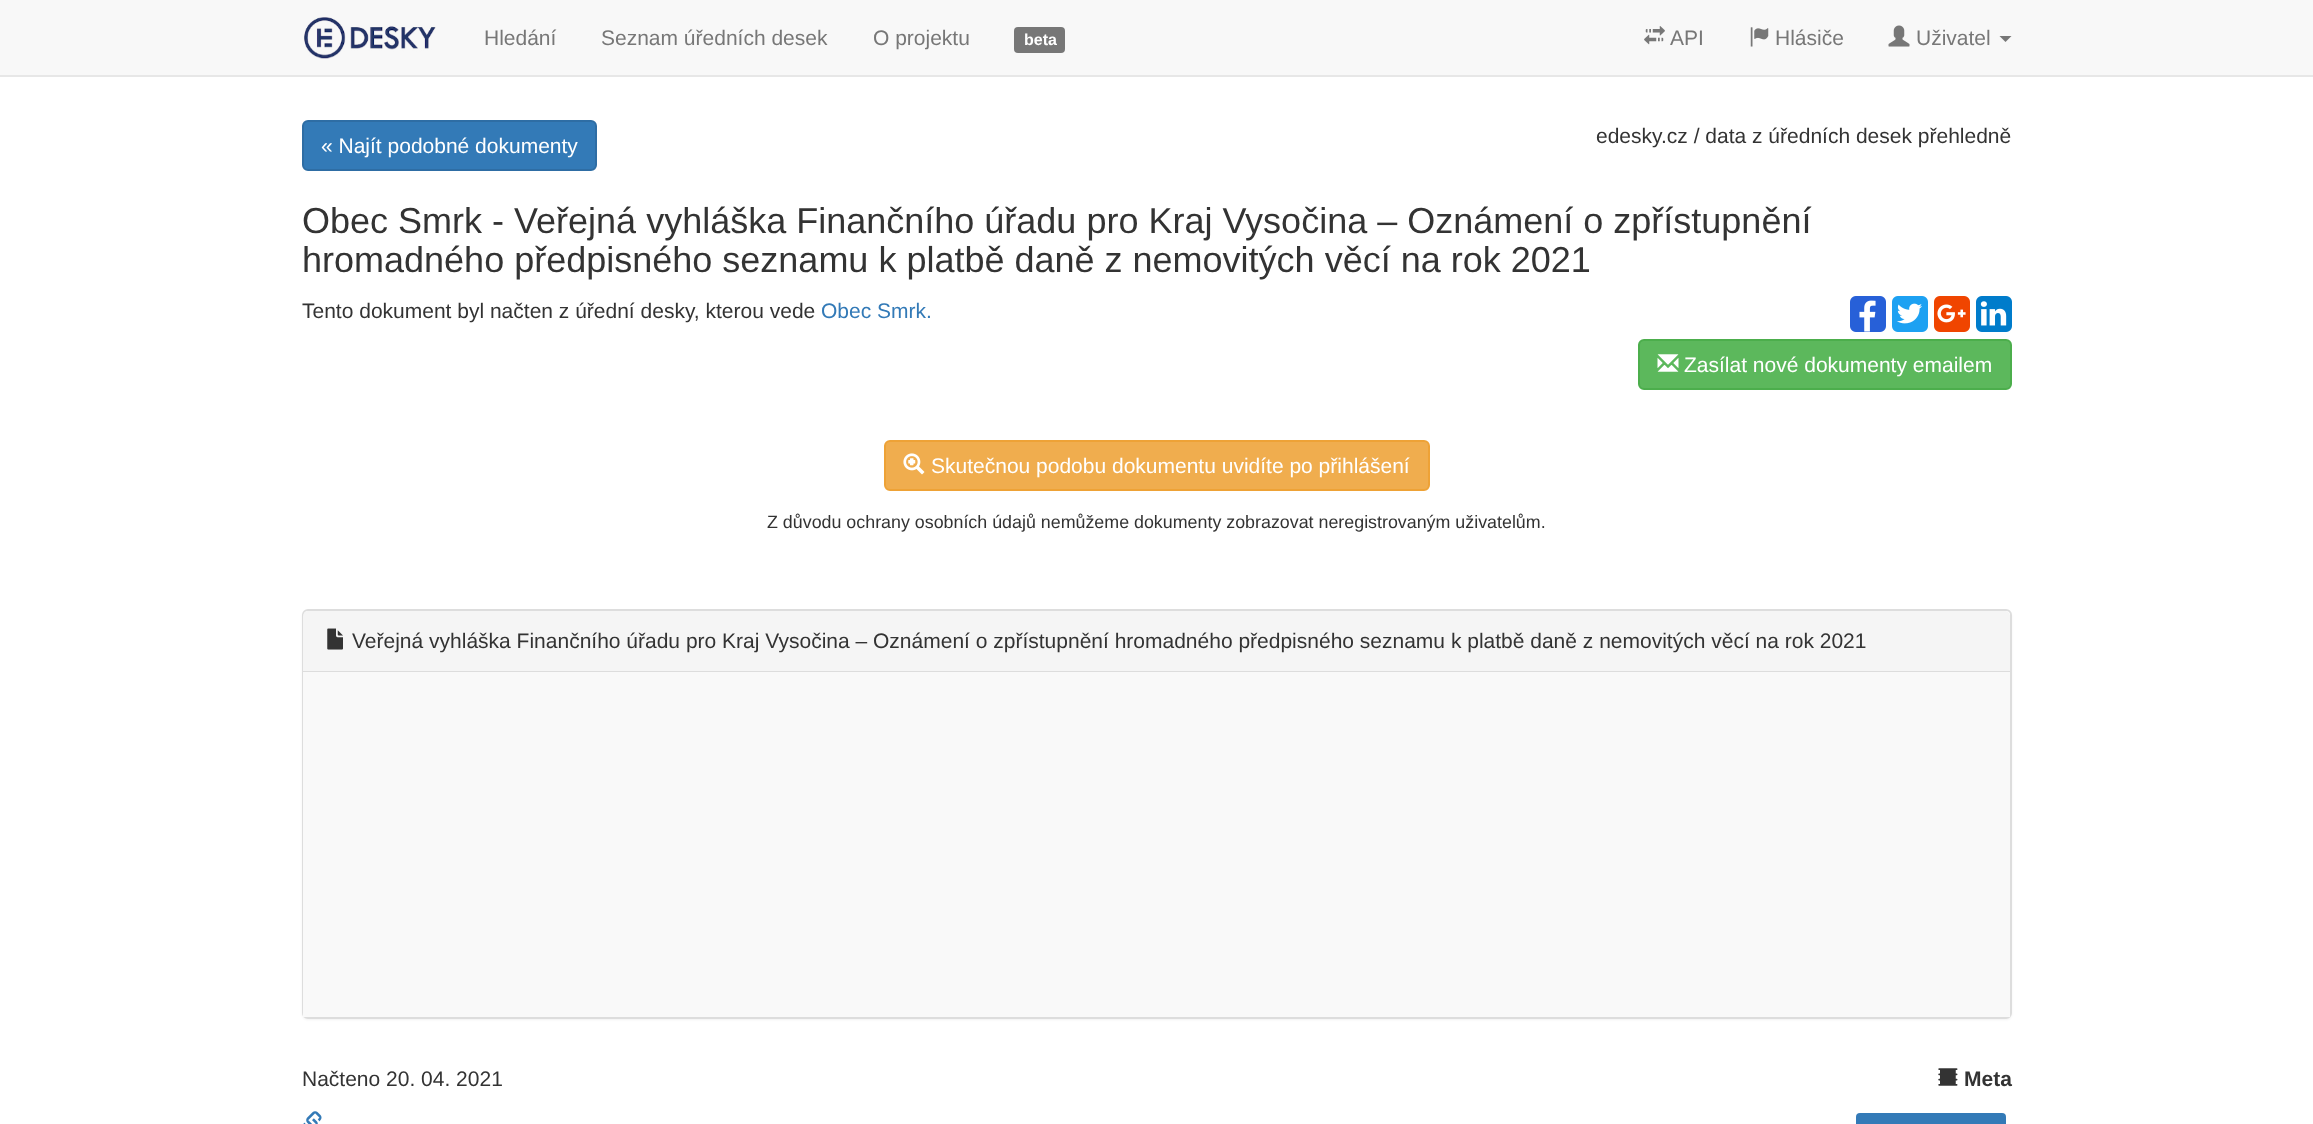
<!DOCTYPE html>
<meta charset="utf-8">
<style>body { margin: 0 } canvas { display: block }</style>
<canvas id="canvas" width="2313" height="1124"></canvas>
<img id="img1" src="img_01.png" hidden>
<img id="img2" src="img_02.png" hidden>
<img id="img3" src="img_03.png" hidden>
<img id="img4" src="img_04.png" hidden>
<img id="img5" src="img_05.png" hidden>
<img id="img6" src="img_06.png" hidden>
<img id="img7" src="img_07.png" hidden>
<img id="img8" src="img_08.png" hidden>
<img id="img9" src="img_09.png" hidden>
<img id="img10" src="img_10.png" hidden>
<img id="img11" src="img_11.png" hidden>
<img id="img12" src="img_12.png" hidden>
<img id="img13" src="img_13.png" hidden>
<script>
window.onload = function () {
	const canvas = document.getElementById("canvas");
	const ctx = canvas.getContext("2d");
	ctx.miterLimit = 4;
	ctx.fontKerning = "normal";
	function txt(s, x, y) {
		ctx.fillText(s, x, y);
	}
	function fill(x, y, w, h) {
		ctx.fillRect(x, y, w, h);
	}
	function round(x, y, w, h, r) {
		ctx.beginPath();
		ctx.roundRect(x, y, w, h, r);
		ctx.fill();
	}
	function img(id, x, y, w, h) {
		ctx.drawImage(document.getElementById(id), x, y, w, h);
	}

	ctx.fillStyle = "#FFFFFF";
	fill(0, 0, 2313, 1124);
	ctx.fillStyle = "#F8F8F8";
	fill(0, 0, 2313, 75);
	ctx.fillStyle = "#E7E7E7";
	fill(0, 75, 2313, 2);
	img("img1", 304, 17, 132, 42);
	ctx.fillStyle = "#777777";
	round(1014, 27, 51, 26, 4);
	img("img2", 1644, 26, 21, 19);
	img("img3", 1750, 27, 19, 20);
	img("img4", 1888, 25, 22, 22);
	ctx.beginPath();
	ctx.moveTo(1999.5, 36);
	ctx.lineTo(2011.5, 36);
	ctx.lineTo(2005.5, 42);
	ctx.closePath();
	ctx.fill();
	ctx.fillStyle = "#337AB7";
	ctx.beginPath();
	ctx.roundRect(303, 121, 293, 49, 5);
	ctx.fill();
	ctx.strokeStyle = "#2E6DA4";
	ctx.lineWidth = 2;
	ctx.stroke();
	img("img5", 1850, 296, 36, 36);
	img("img6", 1892, 296, 36, 36);
	img("img7", 1934, 296, 36, 36);
	img("img8", 1976, 296, 36, 36);
	ctx.fillStyle = "#5CB85C";
	ctx.beginPath();
	ctx.roundRect(1639, 340, 372, 49, 5);
	ctx.fill();
	ctx.strokeStyle = "#4CAE4C";
	ctx.stroke();
	img("img9", 1657, 354, 22, 18);
	ctx.fillStyle = "#F0AD4E";
	ctx.beginPath();
	ctx.roundRect(885, 441, 544, 49, 5);
	ctx.fill();
	ctx.strokeStyle = "#EEA236";
	ctx.stroke();
	img("img10", 903, 453, 22, 22);
	ctx.fillStyle = "rgba(0, 0, 0, 0.05)";
	ctx.filter = "blur(1px)";
	ctx.beginPath();
	ctx.roundRect(302, 611, 1710, 409, 6);
	ctx.fill();
	ctx.filter = "none";
	ctx.fillStyle = "#FFFFFF";
	ctx.beginPath();
	ctx.roundRect(303, 610, 1708, 408, 5);
	ctx.fill();
	ctx.strokeStyle = "#DDDDDD";
	ctx.stroke();
	ctx.fillStyle = "#F5F5F5";
	ctx.beginPath();
	ctx.roundRect(303, 611, 1707, 61, [5, 5, 0, 0]);
	ctx.fill();
	ctx.fillStyle = "#DDDDDD";
	fill(303, 671, 1707, 1);
	img("img11", 327, 628, 16, 22);
	ctx.fillStyle = "#F9F9F9";
	fill(303, 672, 1707, 345);
	img("img12", 303, 1111, 19, 13);
	img("img13", 1938, 1068, 20, 18);
	ctx.fillStyle = "#337AB7";
	round(1856, 1113, 150, 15, 4);
	ctx.font = "21px Liberation Sans";
	ctx.fillStyle = "#777777";
	txt("Hledání", 484, 45);
	txt("Seznam úředních desek", 601, 45);
	txt("O projektu", 873, 45);
	ctx.font = "bold 16px Liberation Sans";
	ctx.fillStyle = "#FFFFFF";
	txt("beta", 1024, 45);
	ctx.font = "21px Liberation Sans";
	ctx.fillStyle = "#777777";
	txt("API", 1670, 45);
	txt("Hlásiče", 1775, 45);
	txt("Uživatel", 1916, 45);
	ctx.fillStyle = "#FFFFFF";
	txt("« Najít podobné dokumenty", 321, 153);
	ctx.fillStyle = "#333333";
	txt("edesky.cz / data z úředních desek přehledně", 1596, 143);
	ctx.font = "36px Liberation Sans";
	txt("Obec Smrk - Veřejná vyhláška Finančního úřadu pro Kraj Vysočina – Oznámení o zpřístupnění", 302, 233);
	txt("hromadného předpisného seznamu k platbě daně z nemovitých věcí na rok 2021", 302, 272);
	ctx.font = "21px Liberation Sans";
	txt("Tento dokument byl načten z úřední desky, kterou vede", 302, 318);
	ctx.fillStyle = "#337AB7";
	txt("Obec Smrk.", 821, 318);
	ctx.fillStyle = "#FFFFFF";
	txt("Zasílat nové dokumenty emailem", 1684, 372);
	txt("Skutečnou podobu dokumentu uvidíte po přihlášení", 931, 473);
	ctx.font = "17.85px Liberation Sans";
	ctx.fillStyle = "#333333";
	txt("Z důvodu ochrany osobních údajů nemůžeme dokumenty zobrazovat neregistrovaným uživatelům.", 767, 528);
	ctx.font = "21px Liberation Sans";
	txt("Veřejná vyhláška Finančního úřadu pro Kraj Vysočina – Oznámení o zpřístupnění hromadného předpisného seznamu k platbě daně z nemovitých věcí na rok 2021", 352, 648);
	txt("Načteno 20. 04. 2021", 302, 1086);
	ctx.font = "bold 21px Liberation Sans";
	txt("Meta", 1964, 1086);
};
</script>
